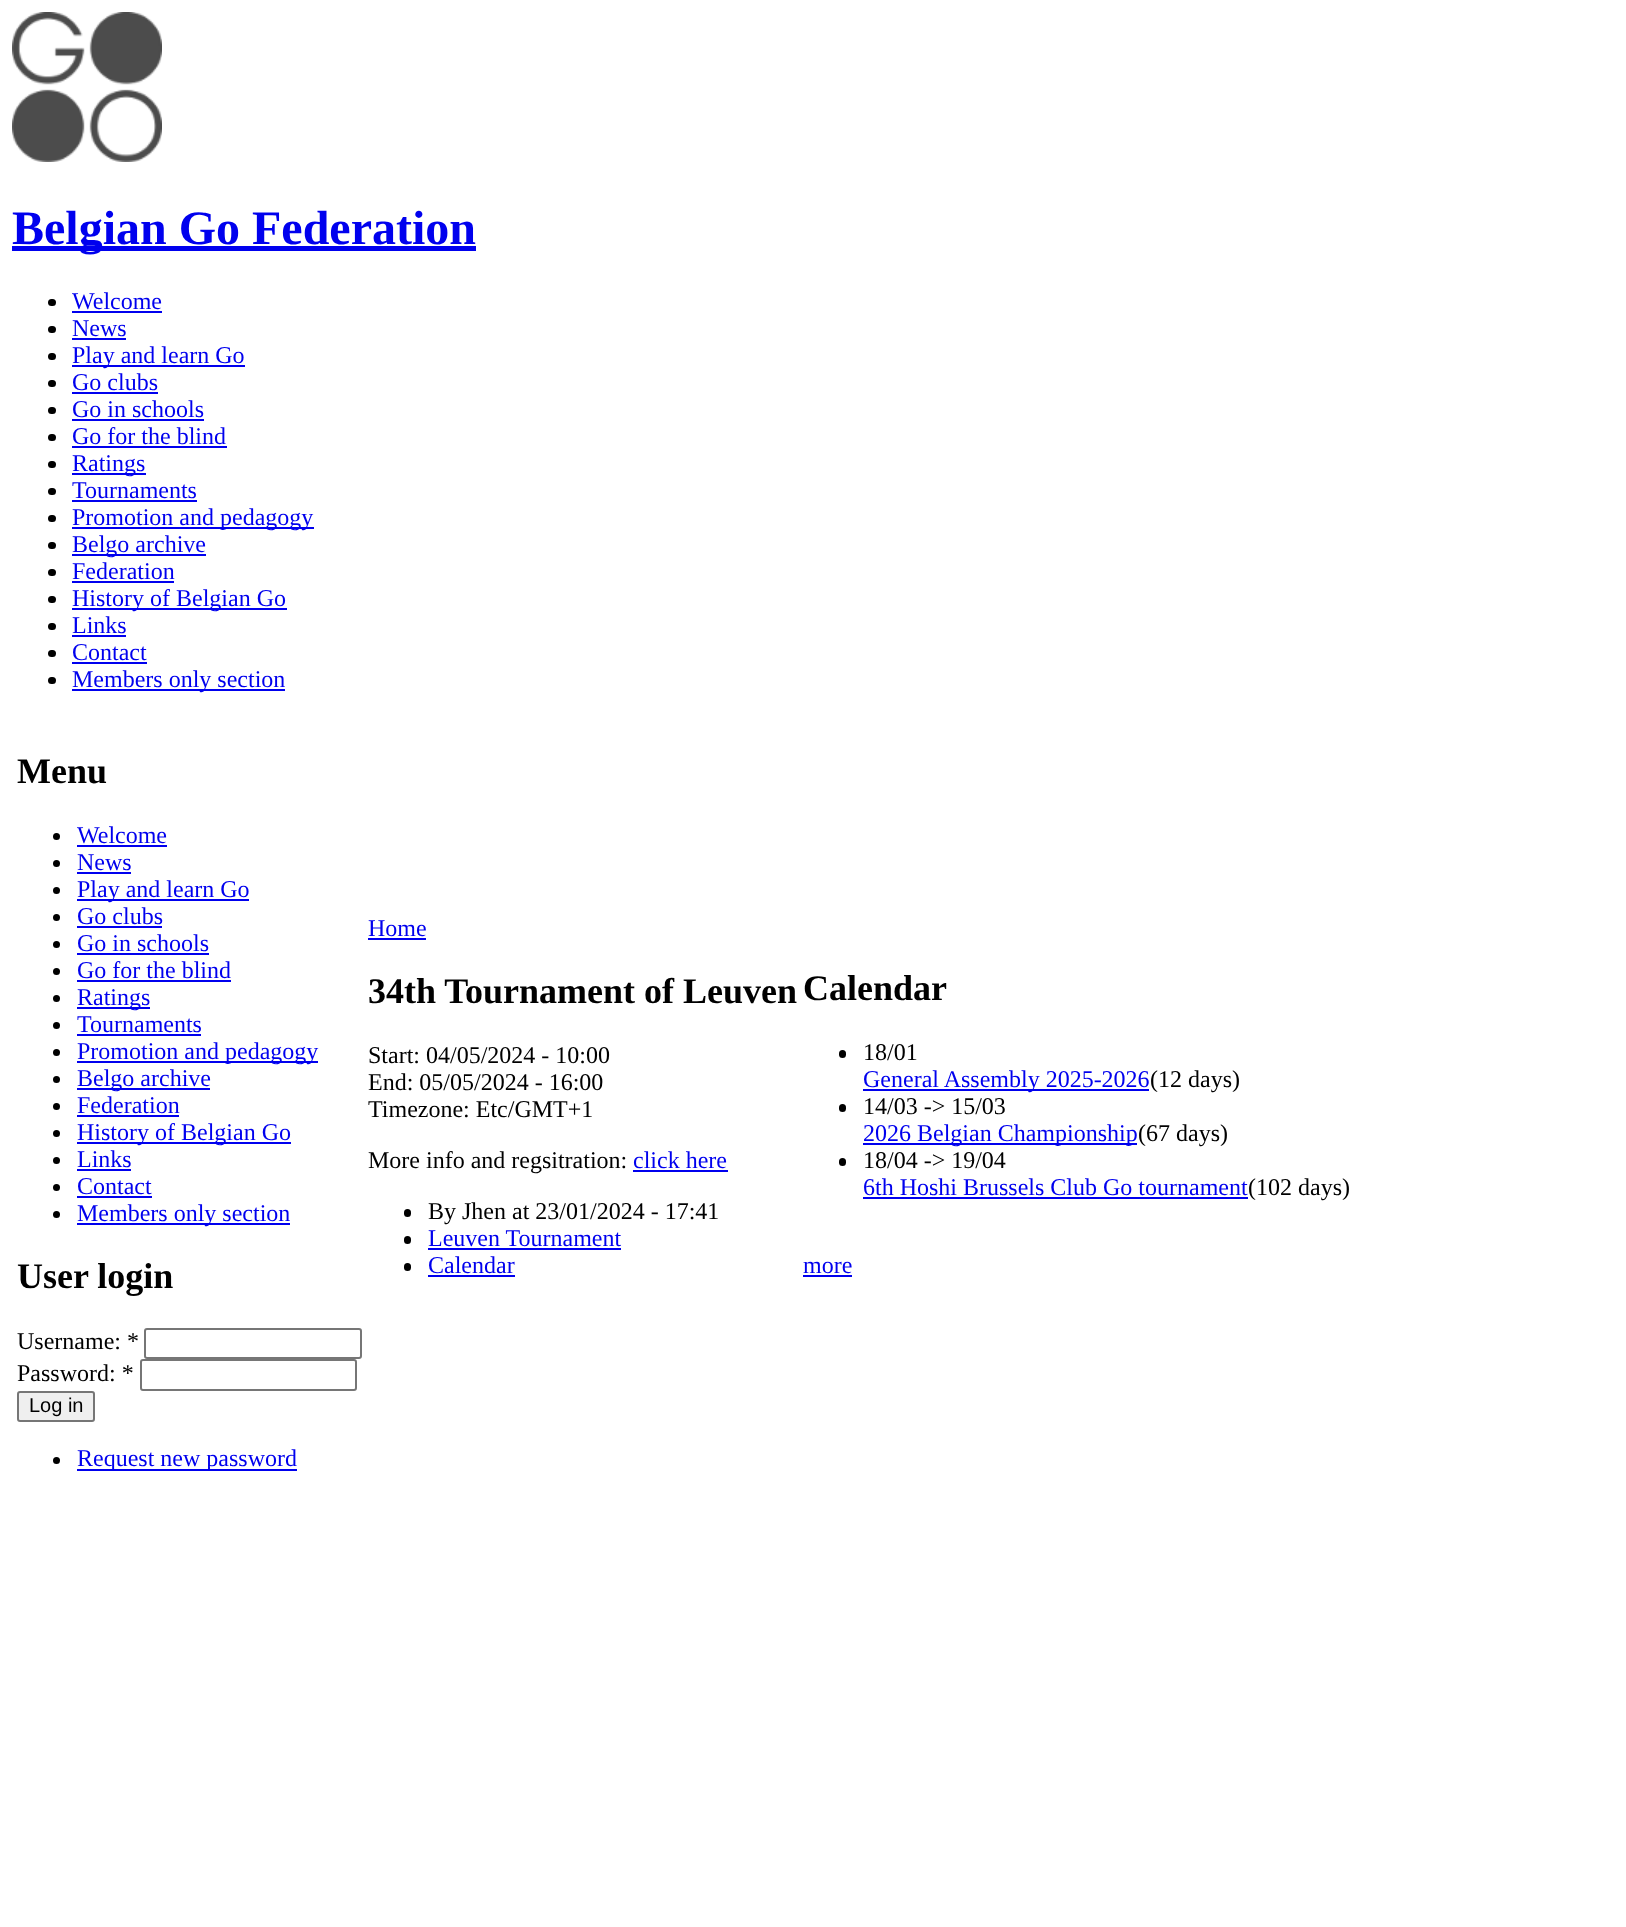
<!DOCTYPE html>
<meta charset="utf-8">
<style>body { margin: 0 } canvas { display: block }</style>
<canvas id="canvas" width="1626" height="1927"></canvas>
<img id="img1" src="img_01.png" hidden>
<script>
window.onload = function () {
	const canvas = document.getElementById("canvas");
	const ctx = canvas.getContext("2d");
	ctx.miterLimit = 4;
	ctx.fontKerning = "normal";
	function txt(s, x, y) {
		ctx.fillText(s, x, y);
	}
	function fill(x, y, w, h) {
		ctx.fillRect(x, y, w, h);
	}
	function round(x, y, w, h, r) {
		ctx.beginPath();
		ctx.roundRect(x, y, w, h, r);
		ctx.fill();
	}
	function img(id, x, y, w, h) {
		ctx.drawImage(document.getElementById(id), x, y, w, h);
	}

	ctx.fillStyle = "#FFFFFF";
	fill(0, 0, 1626, 1927);
	img("img1", 12, 12, 150, 150);
	ctx.fillStyle = "#0000EE";
	fill(12, 246, 464, 5);
	ctx.fillStyle = "#000000";
	round(48, 299, 8, 7, 3.5);
	ctx.fillStyle = "#0000EE";
	fill(72, 311, 90, 2);
	ctx.fillStyle = "#000000";
	round(48, 326, 8, 7, 3.5);
	ctx.fillStyle = "#0000EE";
	fill(72, 338, 54, 2);
	ctx.fillStyle = "#000000";
	round(48, 353, 8, 7, 3.5);
	ctx.fillStyle = "#0000EE";
	fill(72, 365, 173, 2);
	ctx.fillStyle = "#000000";
	round(48, 380, 8, 7, 3.5);
	ctx.fillStyle = "#0000EE";
	fill(72, 392, 86, 2);
	ctx.fillStyle = "#000000";
	round(48, 407, 8, 7, 3.5);
	ctx.fillStyle = "#0000EE";
	fill(72, 419, 132, 2);
	ctx.fillStyle = "#000000";
	round(48, 434, 8, 7, 3.5);
	ctx.fillStyle = "#0000EE";
	fill(72, 446, 155, 2);
	ctx.fillStyle = "#000000";
	round(48, 461, 8, 7, 3.5);
	ctx.fillStyle = "#0000EE";
	fill(72, 473, 74, 2);
	ctx.fillStyle = "#000000";
	round(48, 488, 8, 7, 3.5);
	ctx.fillStyle = "#0000EE";
	fill(72, 500, 125, 2);
	ctx.fillStyle = "#000000";
	round(48, 515, 8, 7, 3.5);
	ctx.fillStyle = "#0000EE";
	fill(72, 527, 242, 2);
	ctx.fillStyle = "#000000";
	round(48, 542, 8, 7, 3.5);
	ctx.fillStyle = "#0000EE";
	fill(72, 554, 134, 2);
	ctx.fillStyle = "#000000";
	round(48, 569, 8, 7, 3.5);
	ctx.fillStyle = "#0000EE";
	fill(72, 581, 102, 2);
	ctx.fillStyle = "#000000";
	round(48, 596, 8, 7, 3.5);
	ctx.fillStyle = "#0000EE";
	fill(72, 608, 215, 2);
	ctx.fillStyle = "#000000";
	round(48, 623, 8, 7, 3.5);
	ctx.fillStyle = "#0000EE";
	fill(72, 635, 54, 2);
	ctx.fillStyle = "#000000";
	round(48, 650, 8, 7, 3.5);
	ctx.fillStyle = "#0000EE";
	fill(72, 662, 75, 2);
	ctx.fillStyle = "#000000";
	round(48, 677, 8, 7, 3.5);
	ctx.fillStyle = "#0000EE";
	fill(72, 689, 213, 2);
	ctx.fillStyle = "#000000";
	ctx.beginPath();
	ctx.arc(56.5, 836.5, 3.5, 0, Math.PI * 2);
	ctx.fill();
	ctx.fillStyle = "#0000EE";
	fill(77, 845, 90, 2);
	ctx.fillStyle = "#000000";
	ctx.beginPath();
	ctx.arc(56.5, 863.5, 3.5, 0, Math.PI * 2);
	ctx.fill();
	ctx.fillStyle = "#0000EE";
	fill(77, 872, 54, 2);
	ctx.fillStyle = "#000000";
	ctx.beginPath();
	ctx.arc(56.5, 890.5, 3.5, 0, Math.PI * 2);
	ctx.fill();
	ctx.fillStyle = "#0000EE";
	fill(77, 899, 172, 2);
	ctx.fillStyle = "#000000";
	ctx.beginPath();
	ctx.arc(56.5, 917.5, 3.5, 0, Math.PI * 2);
	ctx.fill();
	ctx.fillStyle = "#0000EE";
	fill(77, 926, 85, 2);
	ctx.fillStyle = "#000000";
	ctx.beginPath();
	ctx.arc(56.5, 944.5, 3.5, 0, Math.PI * 2);
	ctx.fill();
	ctx.fillStyle = "#0000EE";
	fill(77, 953, 132, 2);
	ctx.fillStyle = "#000000";
	ctx.beginPath();
	ctx.arc(56.5, 971.5, 3.5, 0, Math.PI * 2);
	ctx.fill();
	ctx.fillStyle = "#0000EE";
	fill(77, 980, 154, 2);
	ctx.fillStyle = "#000000";
	ctx.beginPath();
	ctx.arc(56.5, 998.5, 3.5, 0, Math.PI * 2);
	ctx.fill();
	ctx.fillStyle = "#0000EE";
	fill(77, 1007, 73, 2);
	ctx.fillStyle = "#000000";
	ctx.beginPath();
	ctx.arc(56.5, 1025.5, 3.5, 0, Math.PI * 2);
	ctx.fill();
	ctx.fillStyle = "#0000EE";
	fill(77, 1034, 124, 2);
	ctx.fillStyle = "#000000";
	ctx.beginPath();
	ctx.arc(56.5, 1052.5, 3.5, 0, Math.PI * 2);
	ctx.fill();
	ctx.fillStyle = "#0000EE";
	fill(77, 1061, 241, 2);
	ctx.fillStyle = "#000000";
	ctx.beginPath();
	ctx.arc(56.5, 1079.5, 3.5, 0, Math.PI * 2);
	ctx.fill();
	ctx.fillStyle = "#0000EE";
	fill(77, 1088, 133, 2);
	ctx.fillStyle = "#000000";
	ctx.beginPath();
	ctx.arc(56.5, 1106.5, 3.5, 0, Math.PI * 2);
	ctx.fill();
	ctx.fillStyle = "#0000EE";
	fill(77, 1115, 102, 2);
	ctx.fillStyle = "#000000";
	ctx.beginPath();
	ctx.arc(56.5, 1133.5, 3.5, 0, Math.PI * 2);
	ctx.fill();
	ctx.fillStyle = "#0000EE";
	fill(77, 1142, 214, 2);
	ctx.fillStyle = "#000000";
	ctx.beginPath();
	ctx.arc(56.5, 1160.5, 3.5, 0, Math.PI * 2);
	ctx.fill();
	ctx.fillStyle = "#0000EE";
	fill(77, 1169, 54, 2);
	ctx.fillStyle = "#000000";
	ctx.beginPath();
	ctx.arc(56.5, 1187.5, 3.5, 0, Math.PI * 2);
	ctx.fill();
	ctx.fillStyle = "#0000EE";
	fill(77, 1196, 75, 2);
	ctx.fillStyle = "#000000";
	ctx.beginPath();
	ctx.arc(56.5, 1214.5, 3.5, 0, Math.PI * 2);
	ctx.fill();
	ctx.fillStyle = "#0000EE";
	fill(77, 1223, 213, 2);
	ctx.beginPath();
	ctx.roundRect(145, 1329, 216, 29, 2);
	ctx.strokeStyle = "#767676";
	ctx.lineWidth = 2;
	ctx.stroke();
	ctx.beginPath();
	ctx.roundRect(141, 1360, 215, 30, 2);
	ctx.stroke();
	ctx.fillStyle = "#EFEFEF";
	ctx.beginPath();
	ctx.roundRect(18, 1392, 76, 29, 2);
	ctx.fill();
	ctx.stroke();
	ctx.fillStyle = "#000000";
	ctx.beginPath();
	ctx.arc(56.5, 1460.5, 3.5, 0, Math.PI * 2);
	ctx.fill();
	ctx.fillStyle = "#0000EE";
	fill(77, 1469, 220, 2);
	fill(368, 938, 58, 2);
	fill(633, 1170, 95, 2);
	ctx.fillStyle = "#000000";
	round(404, 1209, 7, 8, 3.5);
	round(404, 1236, 7, 8, 3.5);
	ctx.fillStyle = "#0000EE";
	fill(428, 1248, 193, 2);
	ctx.fillStyle = "#000000";
	round(404, 1263, 7, 8, 3.5);
	ctx.fillStyle = "#0000EE";
	fill(428, 1275, 87, 2);
	ctx.fillStyle = "#000000";
	round(839, 1050, 7, 8, 3.5);
	ctx.fillStyle = "#0000EE";
	fill(863, 1089, 286, 2);
	ctx.fillStyle = "#000000";
	round(839, 1104, 7, 8, 3.5);
	ctx.fillStyle = "#0000EE";
	fill(863, 1143, 274, 2);
	ctx.fillStyle = "#000000";
	round(839, 1158, 7, 8, 3.5);
	ctx.fillStyle = "#0000EE";
	fill(863, 1197, 385, 2);
	fill(803, 1275, 49, 2);
	ctx.font = "bold 48px Liberation Serif";
	txt("Belgian Go Federation", 12, 244);
	ctx.font = "24px Liberation Serif";
	txt("Welcome", 72, 309);
	txt("News", 72, 336);
	txt("Play and learn Go", 72, 363);
	txt("Go clubs", 72, 390);
	txt("Go in schools", 72, 417);
	txt("Go for the blind", 72, 444);
	txt("Ratings", 72, 471);
	txt("Tournaments", 72, 498);
	txt("Promotion and pedagogy", 72, 525);
	txt("Belgo archive", 72, 552);
	txt("Federation", 72, 579);
	txt("History of Belgian Go", 72, 606);
	txt("Links", 72, 633);
	txt("Contact", 72, 660);
	txt("Members only section", 72, 687);
	ctx.font = "bold 36px Liberation Serif";
	ctx.fillStyle = "#000000";
	txt("Menu", 17, 783);
	ctx.font = "24px Liberation Serif";
	ctx.fillStyle = "#0000EE";
	txt("Welcome", 77, 843);
	txt("News", 77, 870);
	txt("Play and learn Go", 77, 897);
	txt("Go clubs", 77, 924);
	txt("Go in schools", 77, 951);
	txt("Go for the blind", 77, 978);
	txt("Ratings", 77, 1005);
	txt("Tournaments", 77, 1032);
	txt("Promotion and pedagogy", 77, 1059);
	txt("Belgo archive", 77, 1086);
	txt("Federation", 77, 1113);
	txt("History of Belgian Go", 77, 1140);
	txt("Links", 77, 1167);
	txt("Contact", 77, 1194);
	txt("Members only section", 77, 1221);
	ctx.font = "bold 36px Liberation Serif";
	ctx.fillStyle = "#000000";
	txt("User login", 17, 1288);
	ctx.font = "24px Liberation Serif";
	txt("Username: *", 17, 1349);
	txt("Password: *", 17, 1381);
	ctx.font = "20px Liberation Sans";
	txt("Log in", 29, 1412);
	ctx.font = "24px Liberation Serif";
	ctx.fillStyle = "#0000EE";
	txt("Request new password", 77, 1466);
	txt("Home", 368, 936);
	ctx.font = "bold 36px Liberation Serif";
	ctx.fillStyle = "#000000";
	txt("34th Tournament of Leuven", 368, 1003);
	ctx.font = "24px Liberation Serif";
	txt("Start: 04/05/2024 - 10:00", 368, 1063);
	txt("End: 05/05/2024 - 16:00", 368, 1090);
	txt("Timezone: Etc/GMT+1", 368, 1117);
	txt("More info and regsitration:", 368, 1168);
	ctx.fillStyle = "#0000EE";
	txt("click here", 633, 1168);
	ctx.fillStyle = "#000000";
	txt("By Jhen at 23/01/2024 - 17:41", 428, 1219);
	ctx.fillStyle = "#0000EE";
	txt("Leuven Tournament", 428, 1246);
	txt("Calendar", 428, 1273);
	ctx.font = "bold 36px Liberation Serif";
	ctx.fillStyle = "#000000";
	txt("Calendar", 803, 1000);
	ctx.font = "24px Liberation Serif";
	txt("18/01", 863, 1060);
	ctx.fillStyle = "#0000EE";
	txt("General Assembly 2025-2026", 863, 1087);
	ctx.fillStyle = "#000000";
	txt("(12 days)", 1150, 1087);
	txt("14/03 -> 15/03", 863, 1114);
	ctx.fillStyle = "#0000EE";
	txt("2026 Belgian Championship", 863, 1141);
	ctx.fillStyle = "#000000";
	txt("(67 days)", 1138, 1141);
	txt("18/04 -> 19/04", 863, 1168);
	ctx.fillStyle = "#0000EE";
	txt("6th Hoshi Brussels Club Go tournament", 863, 1195);
	ctx.fillStyle = "#000000";
	txt("(102 days)", 1248, 1195);
	ctx.fillStyle = "#0000EE";
	txt("more", 803, 1273);
};
</script>
